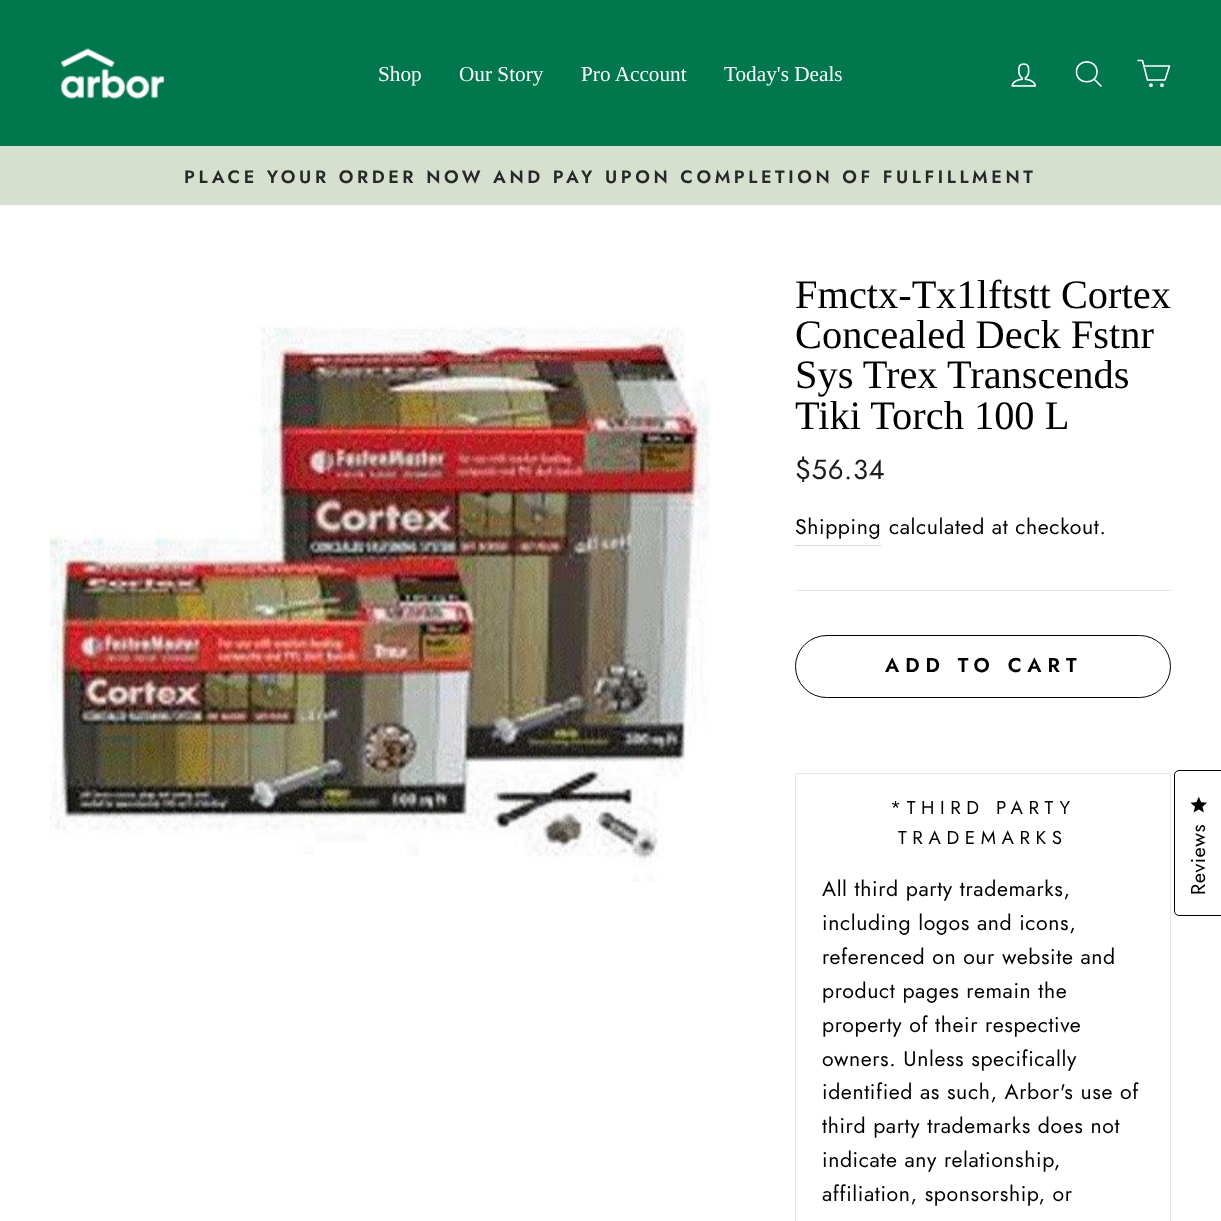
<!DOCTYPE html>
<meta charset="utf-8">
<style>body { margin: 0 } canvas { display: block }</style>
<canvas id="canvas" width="1221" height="1221"></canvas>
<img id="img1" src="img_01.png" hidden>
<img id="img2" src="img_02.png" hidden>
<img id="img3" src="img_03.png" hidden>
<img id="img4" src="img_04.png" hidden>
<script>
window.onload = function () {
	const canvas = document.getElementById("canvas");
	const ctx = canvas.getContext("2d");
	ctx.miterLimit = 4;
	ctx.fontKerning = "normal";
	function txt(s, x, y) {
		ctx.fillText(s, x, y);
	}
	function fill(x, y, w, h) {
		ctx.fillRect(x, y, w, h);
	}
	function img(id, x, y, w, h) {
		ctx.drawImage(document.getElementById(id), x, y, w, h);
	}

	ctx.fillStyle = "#FFFFFF";
	fill(0, 0, 1221, 1221);
	ctx.fillStyle = "#00774D";
	fill(0, 0, 1221, 146);
	img("img1", 60, 48, 105, 51);
	img("img2", 1011, 63, 25, 24);
	ctx.beginPath();
	ctx.moveTo(1097, 72);
	ctx.bezierCurveTo(1097, 85, 1076.5, 85, 1076.5, 72);
	ctx.bezierCurveTo(1076.5, 58.5, 1097, 58.5, 1097, 72);
	ctx.closePath();
	ctx.moveTo(1101, 86);
	ctx.lineTo(1094, 79);
	ctx.strokeStyle = "#FFFFFF";
	ctx.lineWidth = 1.6;
	ctx.lineCap = "round";
	ctx.lineJoin = "round";
	ctx.stroke();
	ctx.beginPath();
	ctx.moveTo(1144, 66);
	ctx.lineTo(1169.5, 66);
	ctx.lineTo(1165, 80);
	ctx.lineTo(1147.5, 80);
	ctx.lineTo(1142.5, 60.5);
	ctx.lineTo(1138, 60.5);
	ctx.stroke();
	ctx.beginPath();
	ctx.arc(1151, 85.2, 1.1, 0, Math.PI * 2);
	ctx.stroke();
	ctx.beginPath();
	ctx.arc(1162, 85.2, 1.1, 0, Math.PI * 2);
	ctx.stroke();
	ctx.fillStyle = "#D5E0CF";
	fill(0, 146, 1221, 59);
	img("img3", 50, 326, 661, 557);
	ctx.fillStyle = "#D9D9D9";
	fill(795, 545, 86, 1);
	ctx.fillStyle = "#E8E8E1";
	fill(795, 590, 376, 1);
	ctx.beginPath();
	ctx.roundRect(795.5, 635.5, 375, 62, 31);
	ctx.strokeStyle = "#000000";
	ctx.lineWidth = 1;
	ctx.lineJoin = "miter";
	ctx.stroke();
	fill(795, 773, 376, 1);
	fill(1170, 773, 1, 448);
	fill(795, 773, 1, 448);
	ctx.beginPath();
	ctx.moveTo(1179, 770.5);
	ctx.lineTo(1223.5, 770.5);
	ctx.lineTo(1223.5, 915.5);
	ctx.lineTo(1179, 915.5);
	ctx.bezierCurveTo(1176.5, 915.5, 1174.5, 913.5, 1174.5, 911);
	ctx.lineTo(1174.5, 775);
	ctx.bezierCurveTo(1174.5, 772.5, 1176.5, 770.5, 1179, 770.5);
	ctx.closePath();
	ctx.stroke();
	img("img4", 1190, 796, 17, 17);
	ctx.font = "21.25px Liberation Serif";
	ctx.fillStyle = "#FFFFFF";
	txt("Shop", 378, 81);
	txt("Our Story", 459, 81);
	txt("Pro Account", 581, 81);
	txt("Today's Deals", 724, 81);
	ctx.letterSpacing = "3.6px";
	ctx.font = "600 18.05px Jost";
	ctx.fillStyle = "#282828";
	txt("PLACE YOUR ORDER NOW AND PAY UPON COMPLETION OF FULFILLMENT", 184, 183);
	ctx.letterSpacing = "0px";
	ctx.font = "40.4px Liberation Serif";
	ctx.fillStyle = "#000000";
	txt("Fmctx-Tx1lftstt Cortex", 795, 308);
	txt("Concealed Deck Fstnr", 795, 348);
	txt("Sys Trex Transcends", 795, 388);
	txt("Tiki Torch 100 L", 795, 429);
	ctx.letterSpacing = "0.6px";
	ctx.font = "27.5px Jost";
	ctx.fillStyle = "#1C1D1D";
	txt("$56.34", 795, 479);
	ctx.font = "21.25px Jost";
	ctx.fillStyle = "#000000";
	txt("Shipping", 795, 534);
	txt("calculated at checkout.", 889, 534);
	ctx.letterSpacing = "6px";
	ctx.font = "600 20px Jost";
	txt("ADD TO CART", 885, 672);
	ctx.letterSpacing = "5.6px";
	ctx.font = "18.75px Jost";
	txt("*THIRD PARTY", 890, 814);
	txt("TRADEMARKS", 898, 844);
	ctx.letterSpacing = "0.6px";
	ctx.font = "21.25px Jost";
	txt("All third party trademarks,", 822, 896);
	txt("including logos and icons,", 822, 930);
	txt("referenced on our website and", 822, 964);
	txt("product pages remain the", 822, 998);
	txt("property of their respective", 822, 1032);
	txt("owners. Unless specifically", 822, 1066);
	txt("identified as such, Arbor's use of", 822, 1099);
	txt("third party trademarks does not", 822, 1133);
	txt("indicate any relationship,", 822, 1167);
	txt("affiliation, sponsorship, or", 822, 1201);
	ctx.font = "20px Jost";
	ctx.save();
	ctx.translate(1205, 895);
	ctx.rotate(-89.9 * Math.PI / 180);
	ctx.fillText("Reviews", 0, 0);
	ctx.restore();
};
</script>
